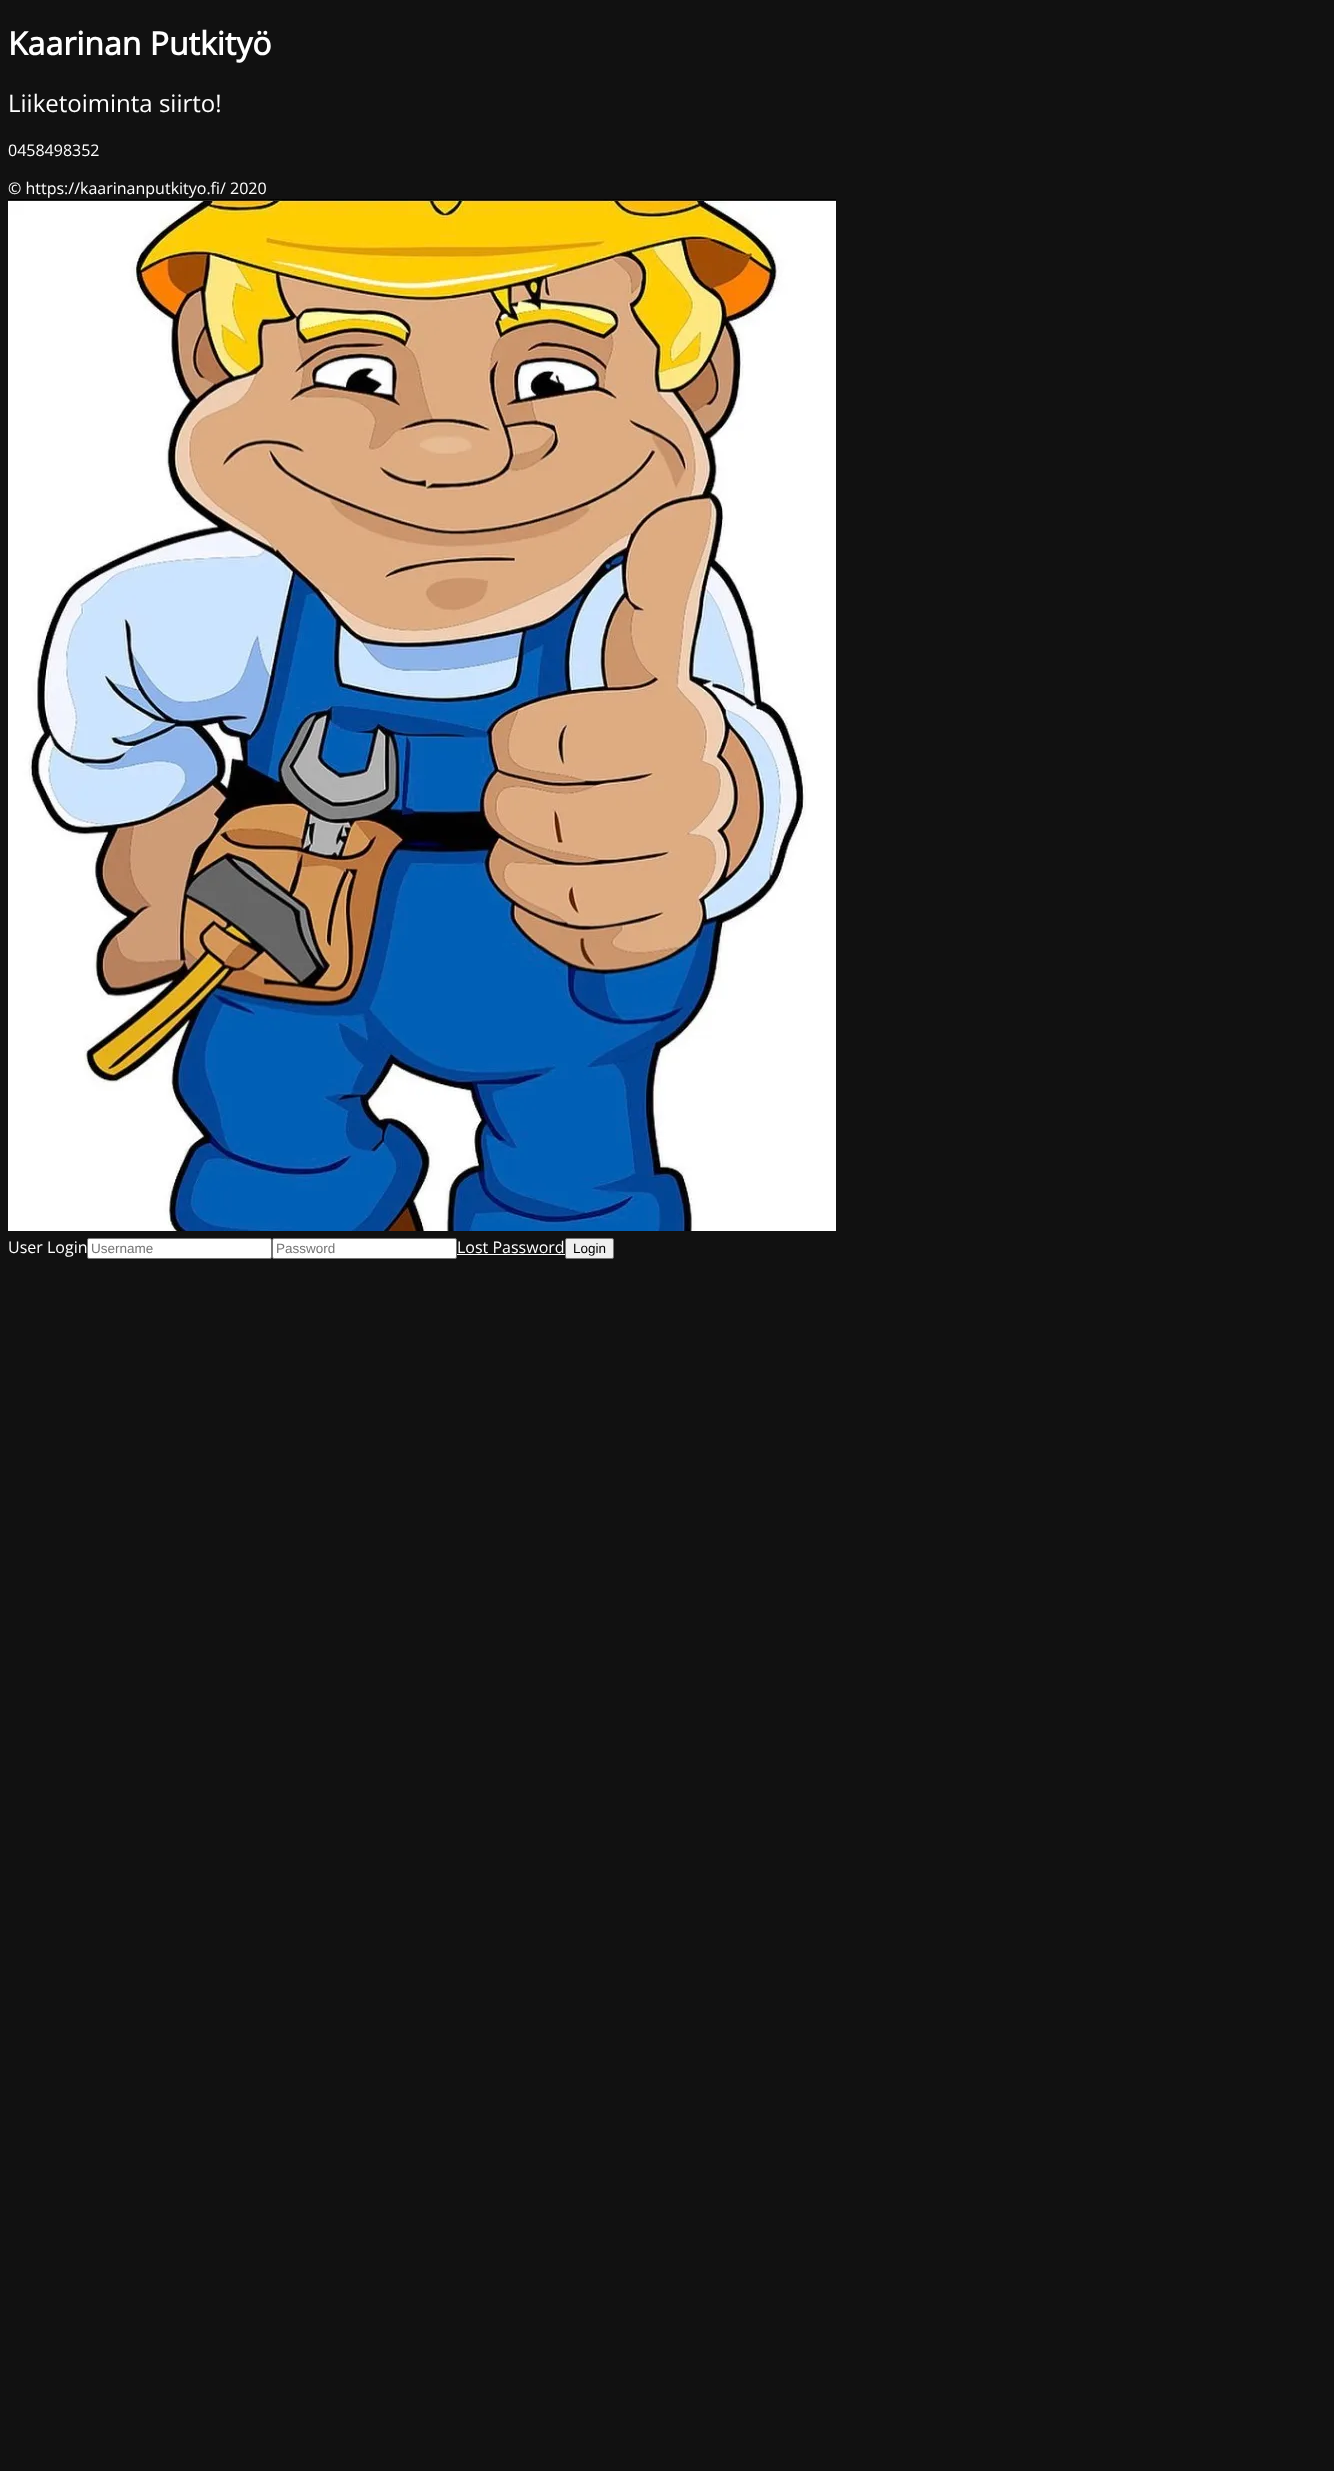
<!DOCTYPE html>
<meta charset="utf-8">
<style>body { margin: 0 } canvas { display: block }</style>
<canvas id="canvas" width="1334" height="2471"></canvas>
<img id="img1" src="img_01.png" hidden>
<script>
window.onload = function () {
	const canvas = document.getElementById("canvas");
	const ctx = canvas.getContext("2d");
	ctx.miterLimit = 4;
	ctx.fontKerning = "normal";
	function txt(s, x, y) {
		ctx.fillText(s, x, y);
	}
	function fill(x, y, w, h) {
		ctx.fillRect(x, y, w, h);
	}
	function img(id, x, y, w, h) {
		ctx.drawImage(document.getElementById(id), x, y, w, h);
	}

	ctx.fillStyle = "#111111";
	fill(0, 0, 1334, 2471);
	img("img1", 8, 199, 828, 1032);
	ctx.fillStyle = "#FFFFFF";
	ctx.beginPath();
	ctx.roundRect(87.5, 1238.5, 184, 20, 1.5);
	ctx.fill();
	ctx.strokeStyle = "#767676";
	ctx.stroke();
	ctx.beginPath();
	ctx.roundRect(272.5, 1238.5, 184, 20, 1.5);
	ctx.fill();
	ctx.stroke();
	fill(457, 1254, 108, 1);
	ctx.fillStyle = "#EFEFEF";
	ctx.beginPath();
	ctx.roundRect(565.5, 1238.5, 48, 20, 1.5);
	ctx.fill();
	ctx.stroke();
	ctx.font = "bold 32px Open Sans";
	ctx.fillStyle = "#FFFFFF";
	txt("Kaarinan Putkityö", 8, 55);
	ctx.font = "24px Open Sans";
	txt("Liiketoiminta siirto!", 8, 112);
	ctx.font = "16px Open Sans";
	txt("0458498352", 8, 156);
	txt("© https://kaarinanputkityo.fi/ 2020", 8, 194);
	txt("User Login", 8, 1253);
	ctx.font = "13.5px Liberation Sans";
	ctx.fillStyle = "#757575";
	txt("Username", 91, 1253);
	txt("Password", 276, 1253);
	ctx.font = "16px Open Sans";
	ctx.fillStyle = "#FFFFFF";
	txt("Lost Password", 457, 1253);
	ctx.font = "13.5px Liberation Sans";
	ctx.fillStyle = "#000000";
	txt("Login", 573, 1253);
};
</script>
